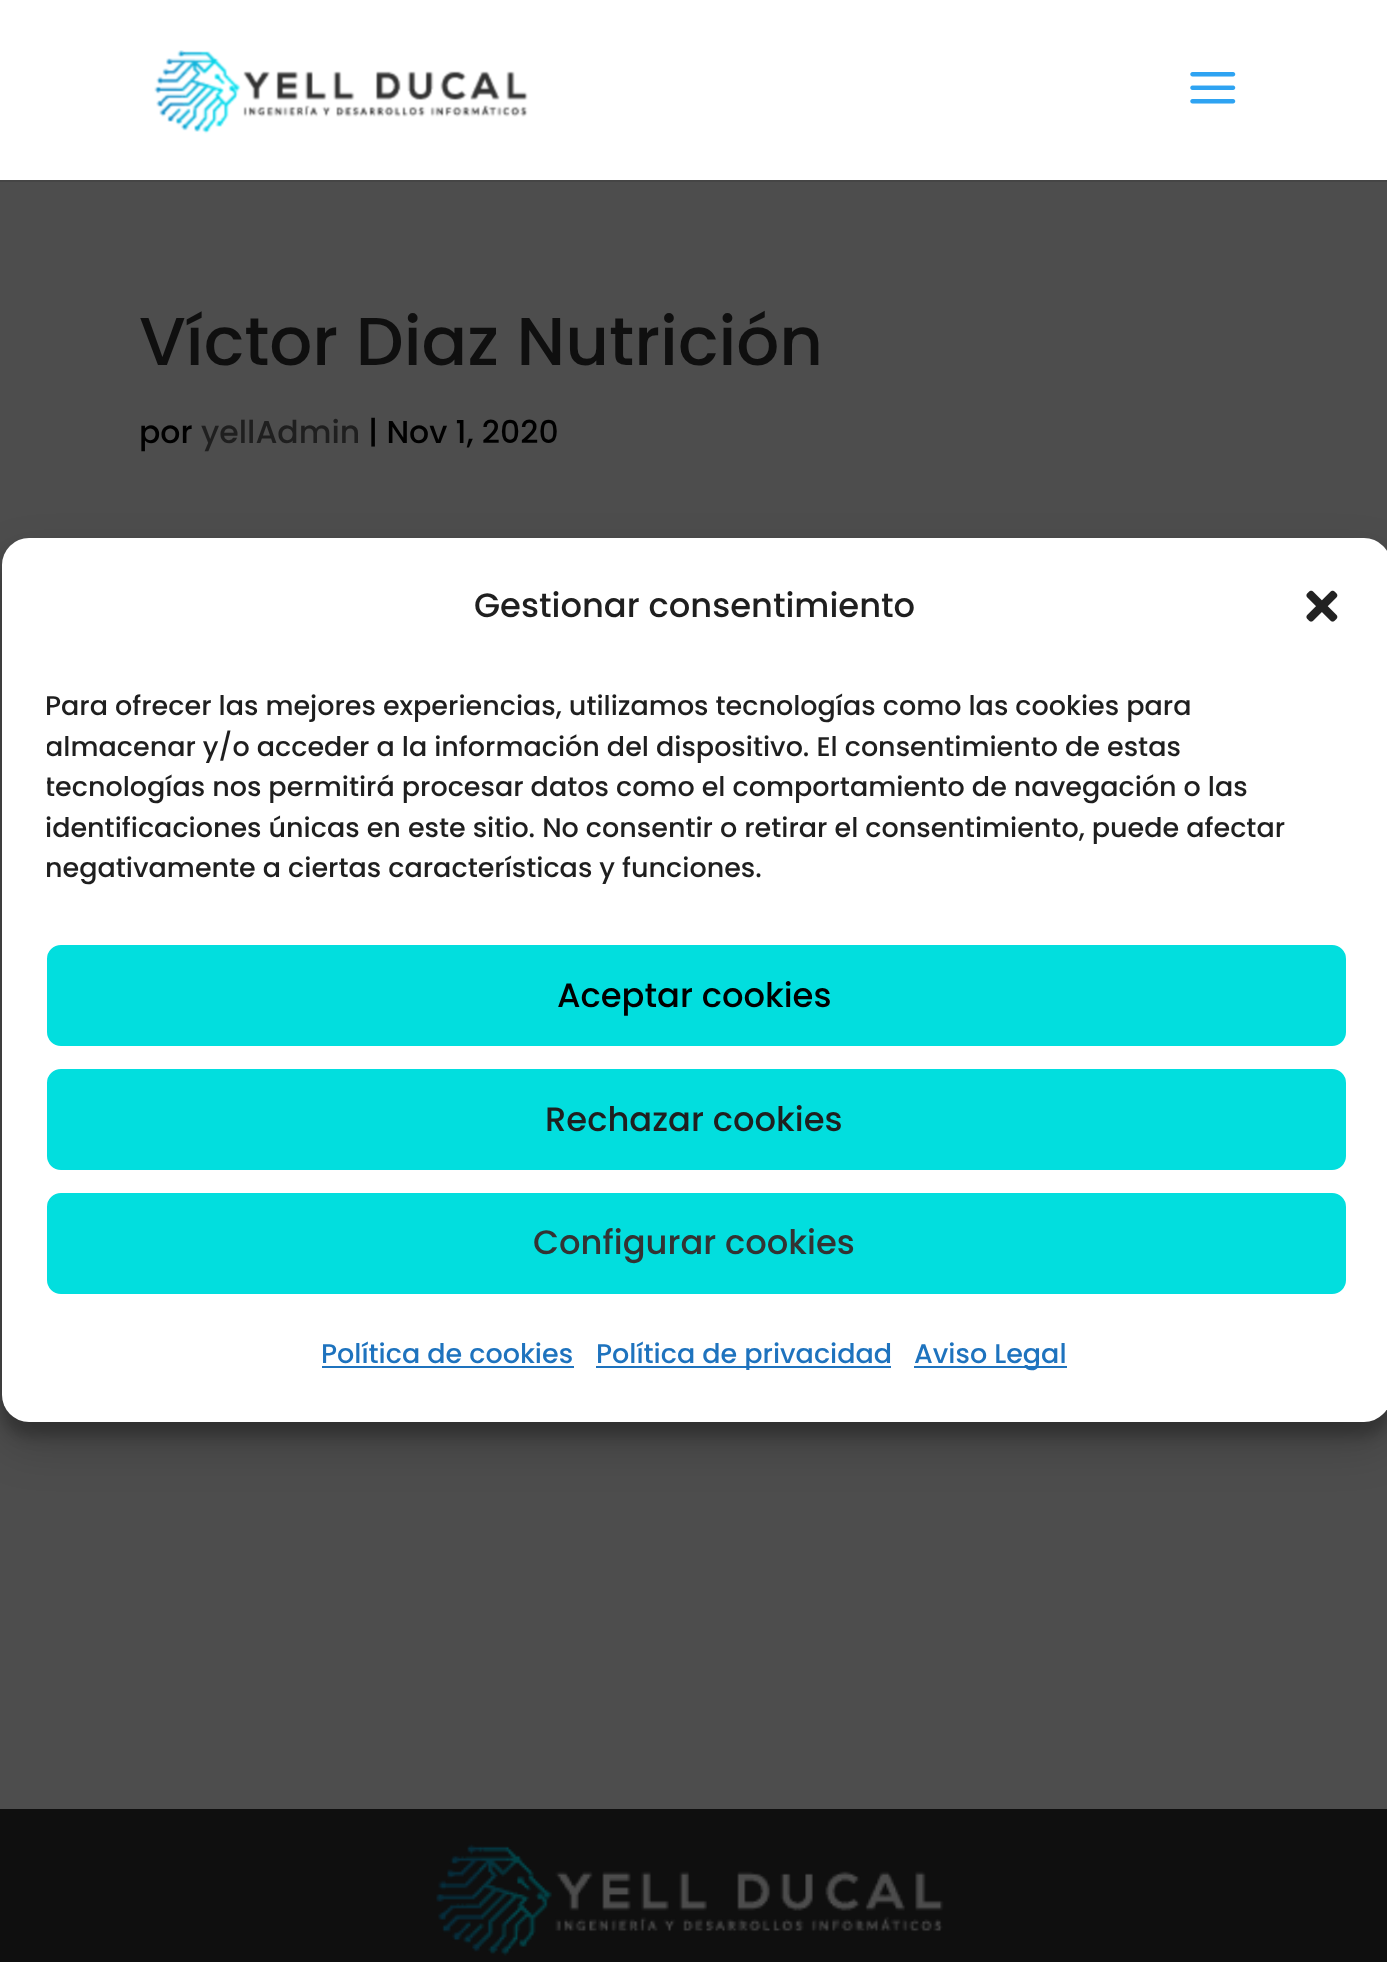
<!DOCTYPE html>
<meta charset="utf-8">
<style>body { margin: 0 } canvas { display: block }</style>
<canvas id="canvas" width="1387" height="1962"></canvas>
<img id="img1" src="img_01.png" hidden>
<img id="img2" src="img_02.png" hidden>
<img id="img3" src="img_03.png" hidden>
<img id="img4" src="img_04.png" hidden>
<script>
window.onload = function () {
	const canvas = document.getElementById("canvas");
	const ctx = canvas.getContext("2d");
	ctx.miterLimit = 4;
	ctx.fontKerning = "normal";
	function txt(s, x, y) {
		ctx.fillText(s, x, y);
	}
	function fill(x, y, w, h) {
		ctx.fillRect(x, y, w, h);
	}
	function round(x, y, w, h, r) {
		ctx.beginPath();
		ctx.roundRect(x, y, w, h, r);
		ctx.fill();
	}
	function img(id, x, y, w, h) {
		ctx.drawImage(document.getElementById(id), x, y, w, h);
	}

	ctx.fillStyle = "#4D4D4D";
	fill(0, 0, 1387, 1962);
	ctx.fillStyle = "#454545";
	fill(0, 180, 1387, 2);
	ctx.fillStyle = "#FFFFFF";
	fill(0, 0, 1387, 180);
	img("img1", 154, 50, 374, 84);
	img("img2", 1190, 72, 46, 32);
	ctx.fillStyle = "#0F0F0F";
	fill(0, 1809, 1387, 153);
	img("img3", 436, 1844, 508, 112);
	ctx.fillStyle = "rgba(0, 0, 0, 0.23)";
	ctx.filter = "blur(7px)";
	ctx.beginPath();
	ctx.roundRect(2, 551, 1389, 885, 27);
	ctx.fill();
	ctx.filter = "none";
	ctx.fillStyle = "rgba(0, 0, 0, 0.19)";
	ctx.filter = "blur(22.5px)";
	ctx.beginPath();
	ctx.roundRect(2, 560, 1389, 885, 27);
	ctx.fill();
	ctx.filter = "none";
	ctx.fillStyle = "#FFFFFF";
	round(2, 538, 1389, 884, 27);
	img("img4", 1306, 590, 32, 32);
	ctx.fillStyle = "#02DEDE";
	ctx.beginPath();
	ctx.roundRect(48, 946, 1297, 99, 13);
	ctx.fill();
	ctx.strokeStyle = "#02DEDE";
	ctx.lineWidth = 2;
	ctx.stroke();
	ctx.beginPath();
	ctx.roundRect(48, 1070, 1297, 99, 13);
	ctx.fill();
	ctx.stroke();
	ctx.beginPath();
	ctx.roundRect(48, 1194, 1297, 99, 13);
	ctx.fill();
	ctx.stroke();
	ctx.fillStyle = "#1E73BE";
	fill(322, 1366, 252, 2);
	fill(596, 1366, 295, 2);
	fill(914, 1366, 153, 2);
	ctx.font = "500 67.5px Poppins";
	ctx.fillStyle = "#0F0F0F";
	txt("Víctor Diaz Nutrición", 139, 365);
	ctx.font = "500 31.5px Poppins";
	ctx.fillStyle = "#000000";
	txt("por", 139, 443);
	ctx.fillStyle = "#1F1F1F";
	txt("yellAdmin", 201, 443);
	ctx.fillStyle = "#000000";
	txt("| Nov 1, 2020", 368, 443);
	ctx.font = "500 33.75px Poppins";
	ctx.fillStyle = "#1F1F1F";
	txt("Gestionar consentimiento", 474, 617);
	ctx.font = "500 27px Poppins";
	txt("Para ofrecer las mejores experiencias, utilizamos tecnologías como las cookies para", 45, 715);
	ctx.save();
	ctx.beginPath();
	ctx.rect(47, 686, 1299, 214);
	ctx.clip();
	txt("almacenar y/o acceder a la información del dispositivo. El consentimiento de estas", 45, 756);
	txt("tecnologías nos permitirá procesar datos como el comportamiento de navegación o las", 45, 796);
	ctx.restore();
	txt("identificaciones únicas en este sitio. No consentir o retirar el consentimiento, puede afectar", 45, 837);
	txt("negativamente a ciertas características y funciones.", 45, 877);
	ctx.font = "500 33.75px Poppins";
	ctx.fillStyle = "#000000";
	txt("Aceptar cookies", 557, 1007);
	ctx.fillStyle = "#1F1F1F";
	txt("Rechazar cookies", 545, 1131);
	ctx.fillStyle = "#333333";
	txt("Configurar cookies", 533, 1254);
	ctx.font = "500 27px Poppins";
	ctx.fillStyle = "#1E73BE";
	txt("Política de cookies", 321, 1363);
	txt("Política de privacidad", 596, 1363);
	txt("Aviso Legal", 914, 1363);
};
</script>
